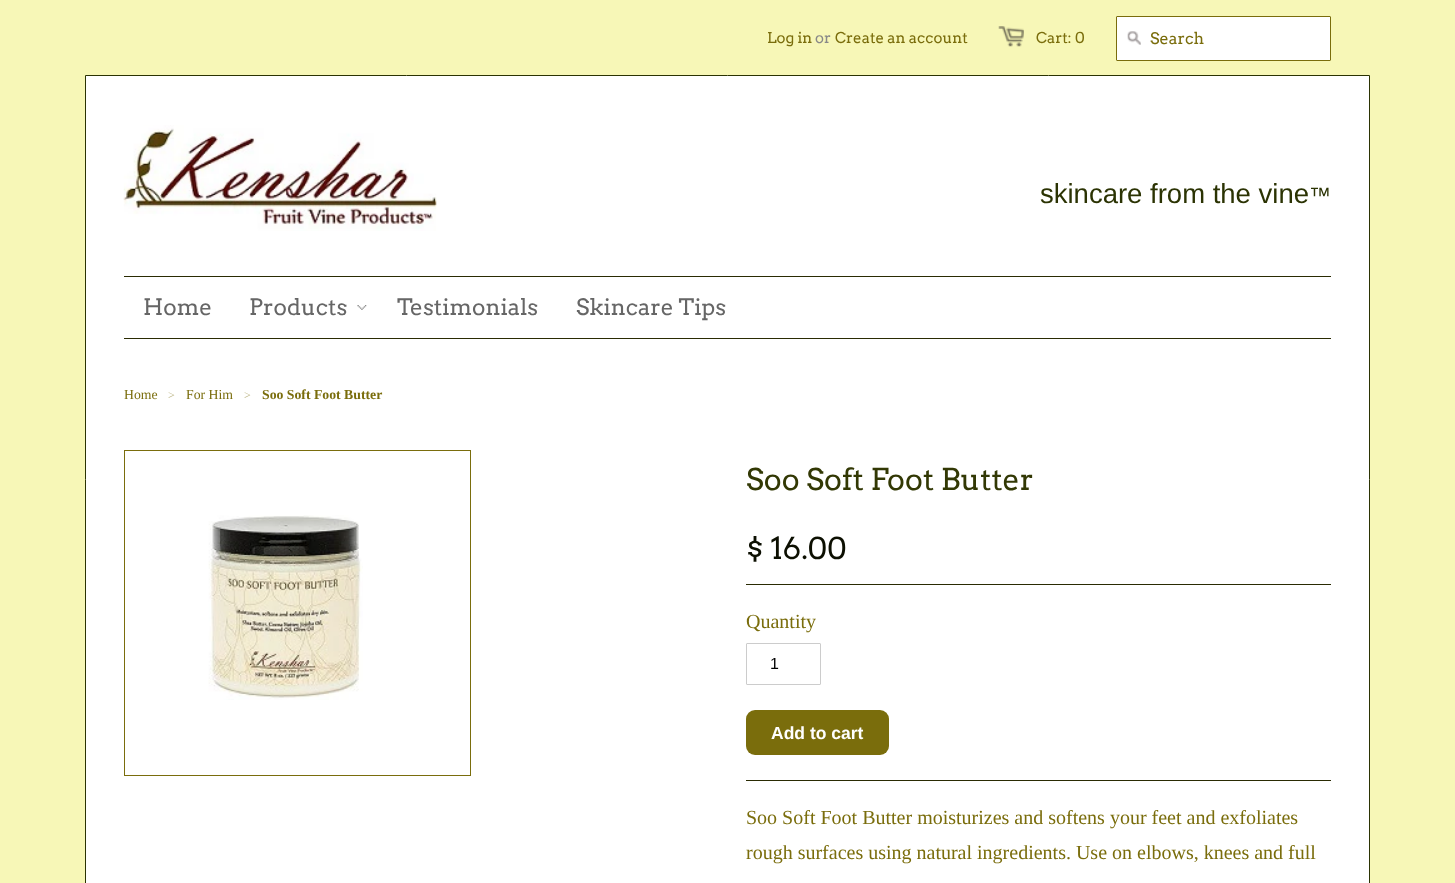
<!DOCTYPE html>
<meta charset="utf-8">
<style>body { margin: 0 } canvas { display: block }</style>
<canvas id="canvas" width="1455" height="883"></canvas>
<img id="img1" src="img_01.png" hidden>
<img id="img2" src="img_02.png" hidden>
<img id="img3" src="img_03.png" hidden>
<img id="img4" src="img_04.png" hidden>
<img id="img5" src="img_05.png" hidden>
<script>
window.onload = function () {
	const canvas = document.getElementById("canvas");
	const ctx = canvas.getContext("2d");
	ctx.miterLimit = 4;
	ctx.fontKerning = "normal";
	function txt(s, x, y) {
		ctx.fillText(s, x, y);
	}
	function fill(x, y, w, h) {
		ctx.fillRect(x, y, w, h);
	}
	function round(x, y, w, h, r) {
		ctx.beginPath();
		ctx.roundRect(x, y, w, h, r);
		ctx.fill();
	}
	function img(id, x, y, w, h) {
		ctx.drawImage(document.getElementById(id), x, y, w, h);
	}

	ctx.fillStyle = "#F7F7B7";
	fill(0, 0, 1455, 883);
	img("img1", 998, 26, 26, 21);
	ctx.fillStyle = "#FFFFFF";
	ctx.beginPath();
	ctx.roundRect(1116.5, 16.5, 214, 44, 0.5);
	ctx.fill();
	ctx.strokeStyle = "#7A6D0C";
	ctx.stroke();
	img("img2", 1127, 31, 14, 14);
	ctx.beginPath();
	ctx.rect(85.5, 75.5, 1284, 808);
	ctx.fill();
	ctx.strokeStyle = "#2B3303";
	ctx.stroke();
	img("img3", 123, 125, 314, 106);
	ctx.fillStyle = "#2A2B03";
	fill(124, 276, 1207, 1);
	fill(124, 338, 1207, 1);
	img("img4", 357, 305, 10, 5);
	ctx.strokeStyle = "#7A6D0C";
	ctx.strokeRect(124.5, 450.5, 346, 325);
	img("img5", 208, 515, 155, 185);
	fill(746, 584, 585, 1);
	fill(746, 780, 585, 1);
	ctx.beginPath();
	ctx.roundRect(746.5, 643.5, 74, 41, 0.5);
	ctx.strokeStyle = "#CCCCCC";
	ctx.stroke();
	ctx.fillStyle = "#7A6D0C";
	round(746, 710, 143, 45, 9);
	ctx.font = "15px Arvo";
	txt("Log in", 767, 43);
	ctx.fillStyle = "#888888";
	txt("or", 815, 43);
	ctx.fillStyle = "#7A6D0C";
	txt("Create an account", 835, 43);
	txt("Cart: 0", 1036, 43);
	ctx.font = "16px Arvo";
	txt("Search", 1150, 44);
	ctx.font = "27.5px Liberation Sans";
	ctx.fillStyle = "#2B3303";
	txt("skincare from the vine", 1040, 203);
	ctx.font = "22px Liberation Sans";
	txt("™", 1309, 203);
	ctx.font = "22.5px Arvo";
	ctx.fillStyle = "#666666";
	txt("Home", 143, 315);
	txt("Products", 249, 315);
	txt("Testimonials", 397, 315);
	txt("Skincare Tips", 576, 315);
	ctx.font = "13.75px Liberation Serif";
	ctx.fillStyle = "#7A6D0C";
	txt("Home", 124, 399);
	ctx.font = "12px Liberation Serif";
	ctx.fillStyle = "#BDB686";
	txt(">", 168, 399);
	ctx.font = "13.75px Liberation Serif";
	ctx.fillStyle = "#7A6D0C";
	txt("For Him", 186, 399);
	ctx.font = "12px Liberation Serif";
	ctx.fillStyle = "#BDB686";
	txt(">", 244, 399);
	ctx.font = "bold 13.75px Liberation Serif";
	ctx.fillStyle = "#7A6D0C";
	txt("Soo Soft Foot Butter", 262, 399);
	ctx.font = "30px Arvo";
	ctx.fillStyle = "#323804";
	txt("Soo Soft Foot Butter", 746, 490);
	ctx.fillStyle = "#0C0F01";
	txt("$ 16.00", 746, 559);
	ctx.font = "20px Liberation Serif";
	ctx.fillStyle = "#7A6D0C";
	txt("Quantity", 746, 628);
	ctx.font = "16px Liberation Sans";
	ctx.fillStyle = "#000000";
	txt("1", 770, 669);
	ctx.font = "bold 17.5px Liberation Sans";
	ctx.fillStyle = "#FFFFFF";
	txt("Add to cart", 771, 739);
	ctx.font = "20px Liberation Serif";
	ctx.fillStyle = "#7A6D0C";
	txt("Soo Soft Foot Butter moisturizes and softens your feet and exfoliates", 746, 824);
	txt("rough surfaces using natural ingredients. Use on elbows, knees and full", 746, 859);
};
</script>
